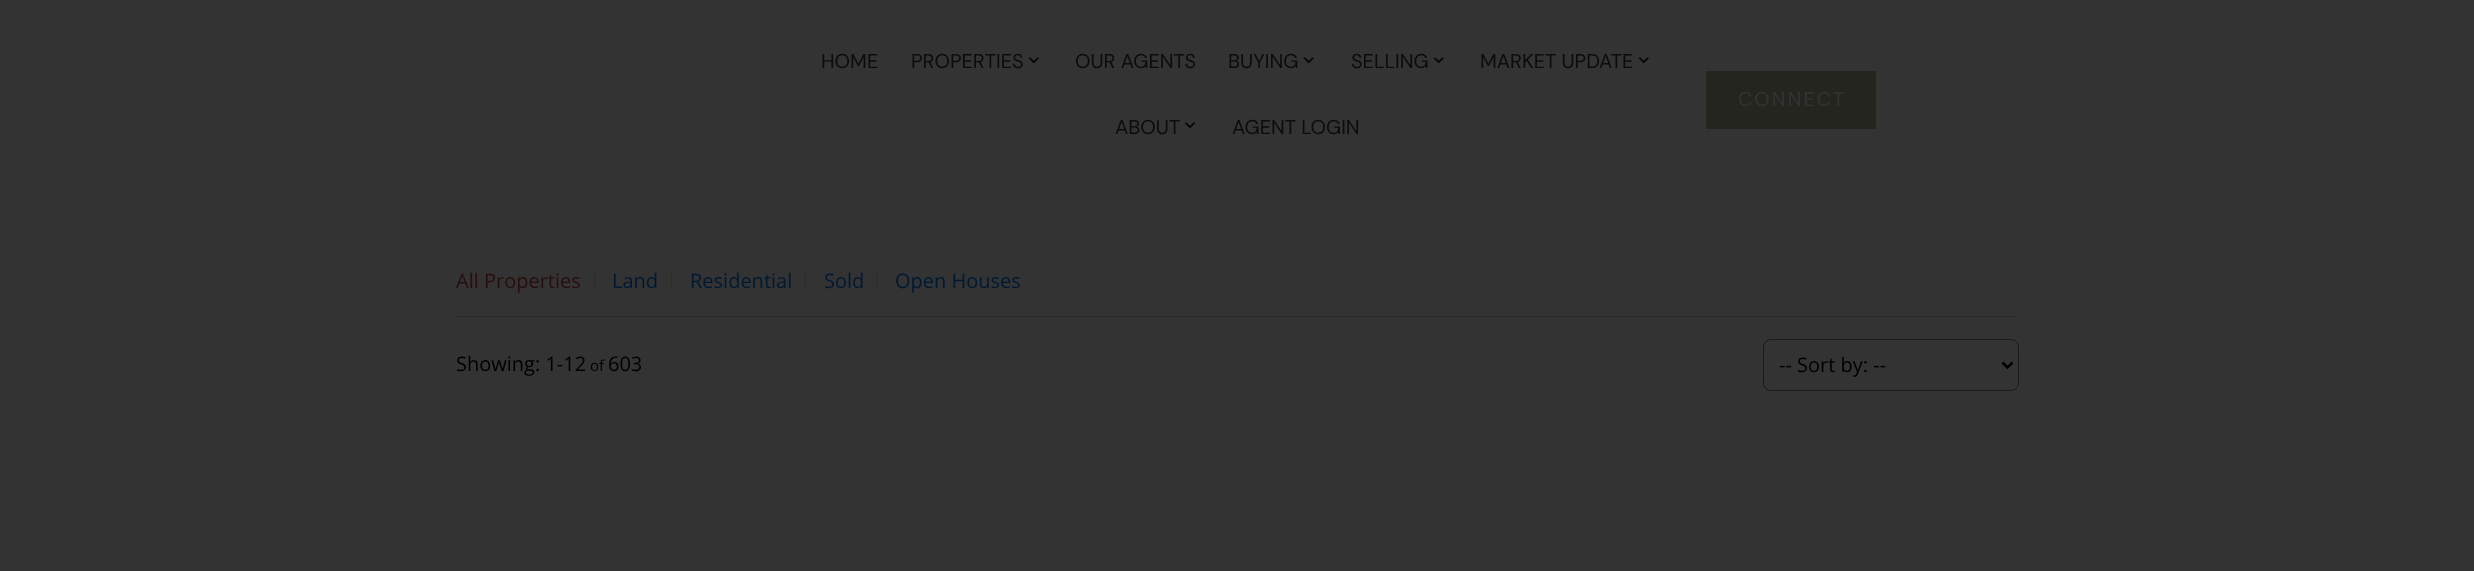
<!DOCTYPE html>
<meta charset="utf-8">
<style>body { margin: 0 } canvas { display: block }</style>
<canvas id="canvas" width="2474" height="571"></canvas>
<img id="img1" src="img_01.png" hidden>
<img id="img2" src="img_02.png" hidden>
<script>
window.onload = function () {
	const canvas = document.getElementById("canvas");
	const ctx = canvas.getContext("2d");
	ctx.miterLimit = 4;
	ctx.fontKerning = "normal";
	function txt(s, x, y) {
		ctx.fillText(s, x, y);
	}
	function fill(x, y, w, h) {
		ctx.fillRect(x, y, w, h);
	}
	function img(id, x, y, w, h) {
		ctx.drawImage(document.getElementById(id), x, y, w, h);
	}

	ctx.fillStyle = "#333333";
	fill(0, 0, 2474, 571);
	img("img1", 1028, 57, 12, 7);
	img("img1", 1303, 57, 12, 7);
	img("img1", 1433, 57, 12, 7);
	img("img1", 1638, 57, 12, 7);
	img("img2", 1185, 122, 10, 7);
	ctx.fillStyle = "#252520";
	fill(1706, 71, 170, 58);
	ctx.fillStyle = "#2C2C2C";
	fill(594, 270, 1, 20);
	fill(671, 270, 1, 20);
	fill(805, 270, 1, 20);
	fill(876, 270, 1, 20);
	fill(456, 316, 1563, 1);
	ctx.beginPath();
	ctx.roundRect(1763.5, 339.5, 255, 51, 7.5);
	ctx.strokeStyle = "#1B1B1B";
	ctx.stroke();
	ctx.beginPath();
	ctx.moveTo(2002.5, 362.5);
	ctx.lineTo(2007.5, 367.5);
	ctx.lineTo(2012.5, 362.5);
	ctx.strokeStyle = "#000000";
	ctx.lineWidth = 2.5;
	ctx.stroke();
	ctx.font = "20px DM Sans";
	ctx.fillStyle = "#0C0C0C";
	txt("HOME", 821, 68);
	txt("PROPERTIES", 911, 68);
	txt("OUR AGENTS", 1075, 68);
	txt("BUYING", 1228, 68);
	txt("SELLING", 1351, 68);
	txt("MARKET UPDATE", 1480, 68);
	txt("ABOUT", 1115, 134);
	txt("AGENT LOGIN", 1232, 134);
	ctx.letterSpacing = "2px";
	ctx.fillStyle = "#333333";
	txt("CONNECT", 1738, 106);
	ctx.letterSpacing = "0px";
	ctx.font = "20px Open Sans";
	ctx.fillStyle = "#290E0E";
	txt("All Properties", 456, 288);
	ctx.fillStyle = "#001933";
	txt("Land", 612, 288);
	txt("Residential", 690, 288);
	txt("Sold", 824, 288);
	txt("Open Houses", 895, 288);
	ctx.fillStyle = "#000000";
	txt("Showing: 1-12", 456, 371);
	ctx.font = "15px Open Sans";
	txt("of", 590, 371);
	ctx.font = "20px Open Sans";
	txt("603", 608, 371);
	txt("-- Sort by: --", 1779, 372);
};
</script>
